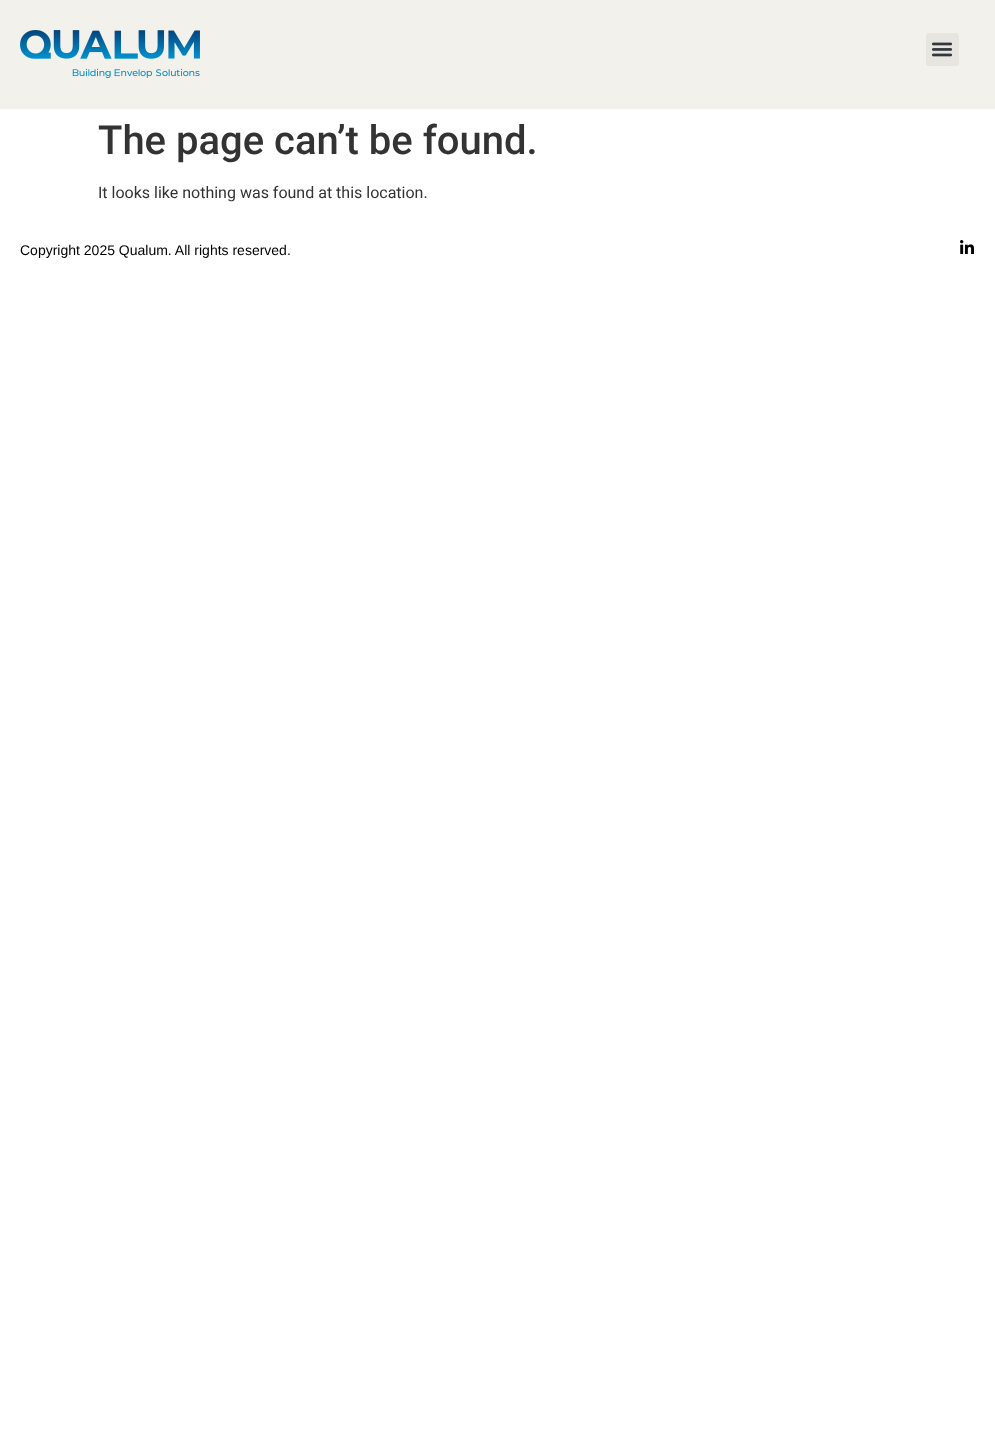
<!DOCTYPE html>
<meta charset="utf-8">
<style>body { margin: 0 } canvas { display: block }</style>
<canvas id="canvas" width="995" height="1451"></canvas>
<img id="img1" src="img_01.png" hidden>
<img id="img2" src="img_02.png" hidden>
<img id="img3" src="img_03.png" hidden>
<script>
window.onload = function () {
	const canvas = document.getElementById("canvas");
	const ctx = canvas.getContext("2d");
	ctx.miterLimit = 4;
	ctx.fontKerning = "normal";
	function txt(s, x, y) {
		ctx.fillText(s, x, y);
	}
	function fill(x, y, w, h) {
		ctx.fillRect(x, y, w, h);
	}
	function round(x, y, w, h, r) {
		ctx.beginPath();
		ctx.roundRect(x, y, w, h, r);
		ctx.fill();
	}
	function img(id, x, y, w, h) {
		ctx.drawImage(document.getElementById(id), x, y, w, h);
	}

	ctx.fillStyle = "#FFFFFF";
	fill(0, 0, 995, 1451);
	ctx.fillStyle = "#F2F1EB";
	fill(0, 0, 995, 109);
	img("img1", 20, 30, 180, 48);
	ctx.fillStyle = "#E6E5DF";
	round(926, 33, 33, 33, 3);
	img("img2", 931, 42, 22, 15);
	img("img3", 960, 240, 14, 14);
	ctx.font = "500 40px Roboto";
	ctx.fillStyle = "#333333";
	txt("The page can’t be found.", 98, 154);
	ctx.font = "16px Roboto";
	txt("It looks like nothing was found at this location.", 98, 198);
	ctx.font = "14px Liberation Sans";
	ctx.fillStyle = "#000000";
	txt("Copyright 2025 Qualum. All rights reserved.", 20, 255);
};
</script>
